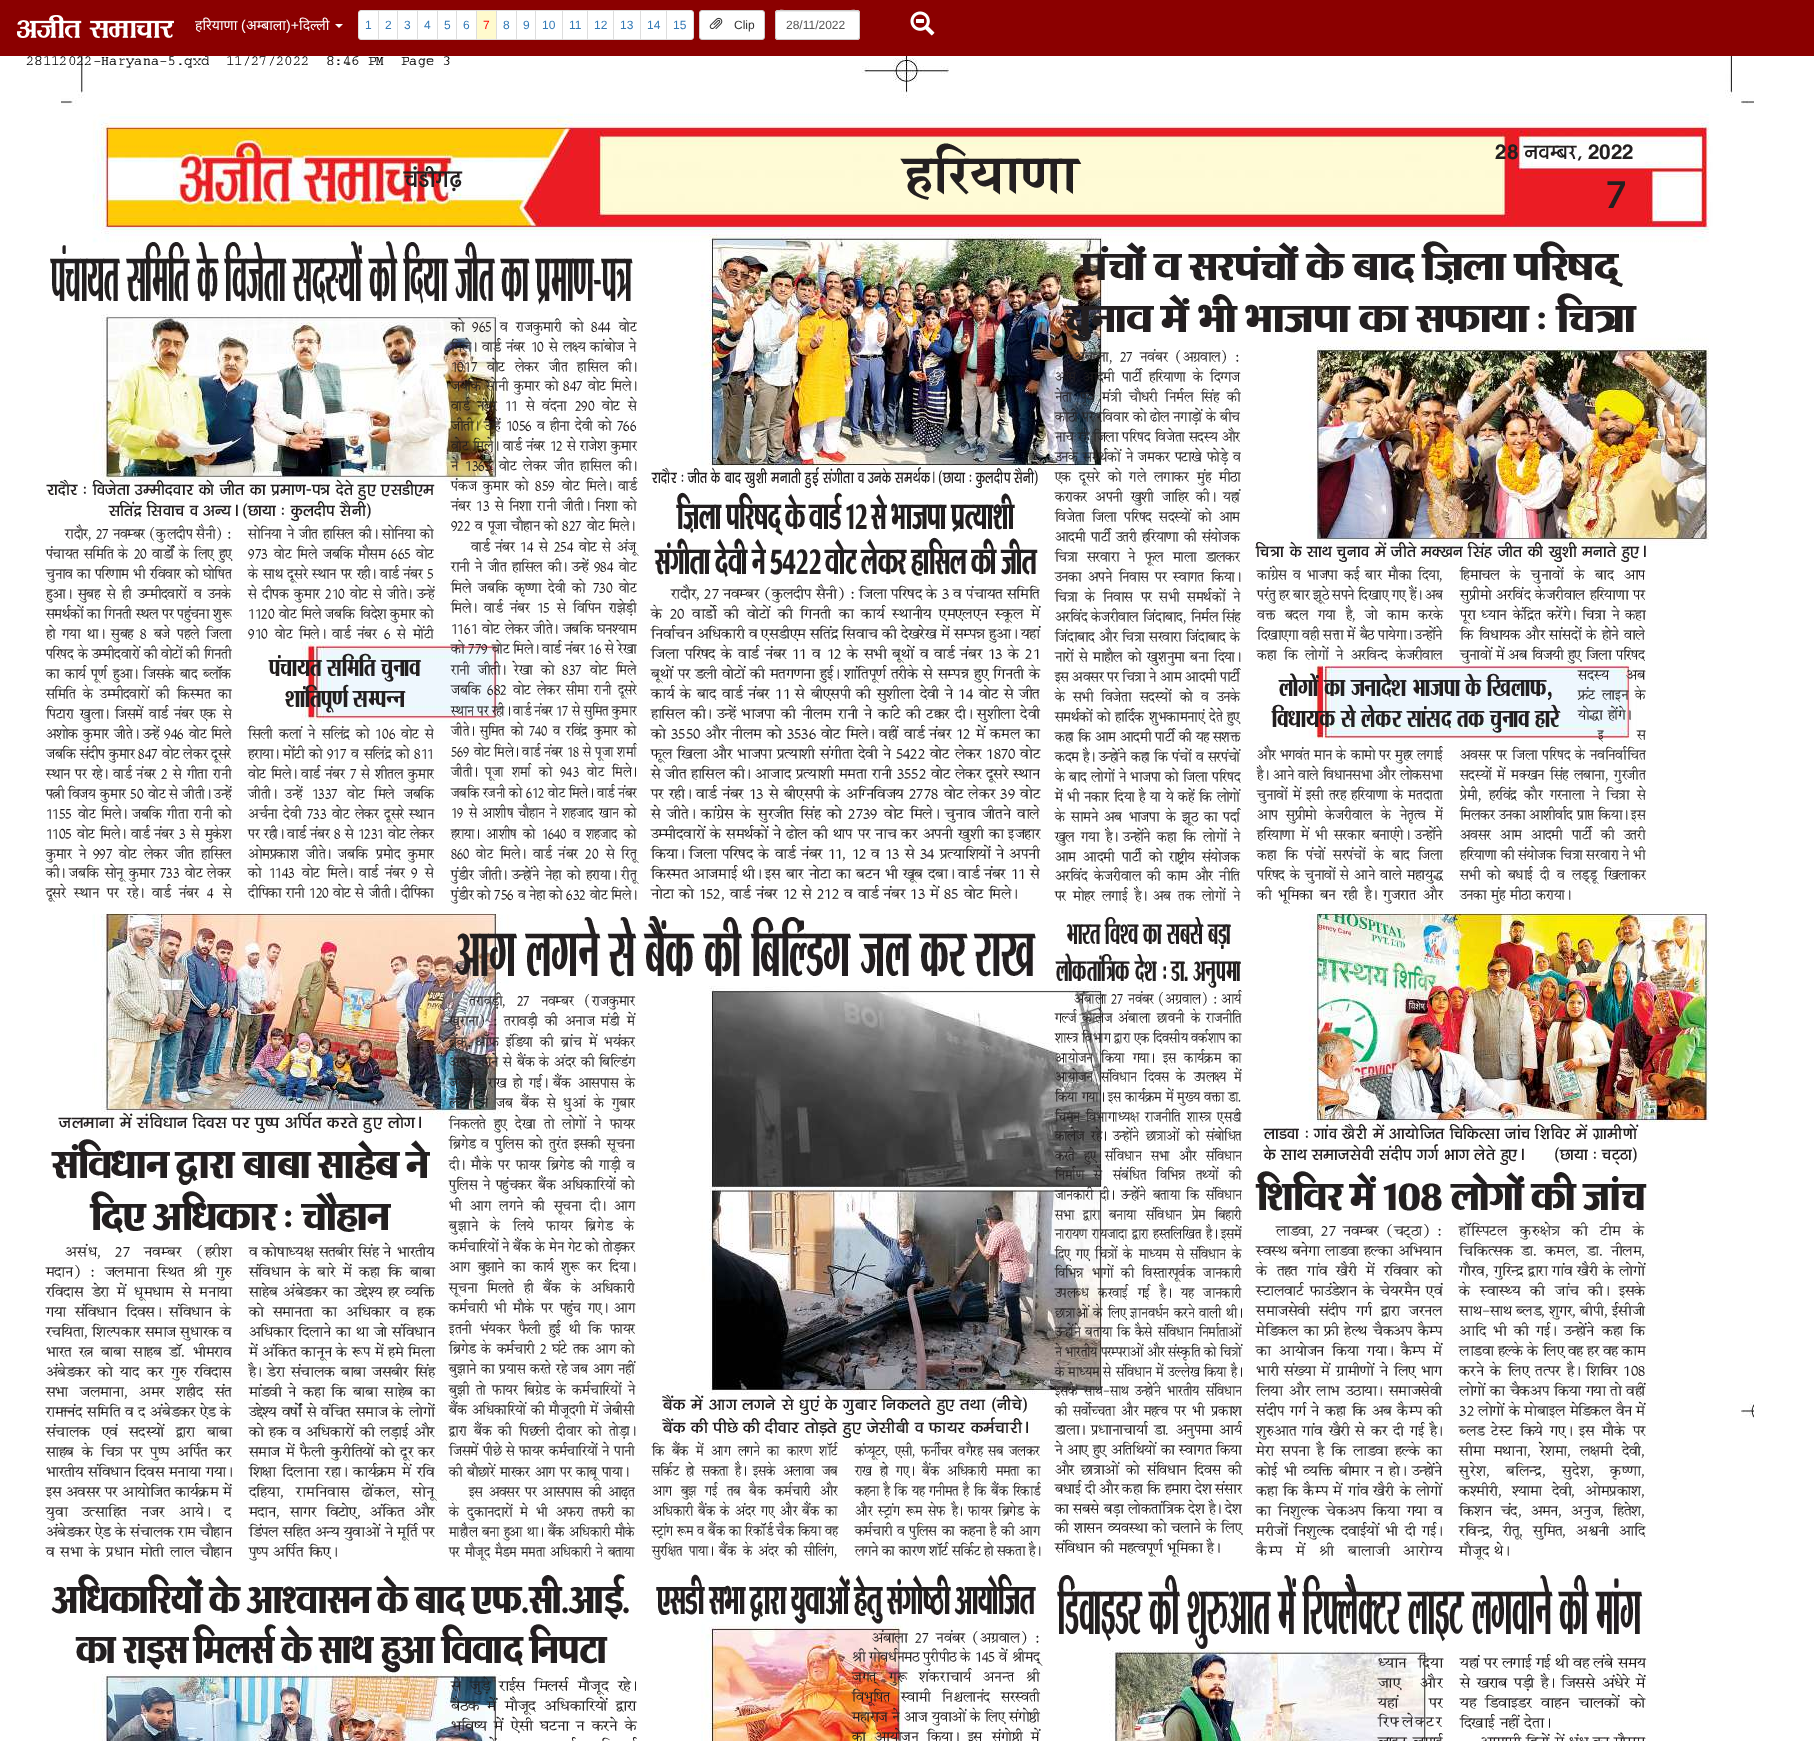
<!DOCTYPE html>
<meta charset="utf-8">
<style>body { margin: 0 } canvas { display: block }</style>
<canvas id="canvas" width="1814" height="1741"></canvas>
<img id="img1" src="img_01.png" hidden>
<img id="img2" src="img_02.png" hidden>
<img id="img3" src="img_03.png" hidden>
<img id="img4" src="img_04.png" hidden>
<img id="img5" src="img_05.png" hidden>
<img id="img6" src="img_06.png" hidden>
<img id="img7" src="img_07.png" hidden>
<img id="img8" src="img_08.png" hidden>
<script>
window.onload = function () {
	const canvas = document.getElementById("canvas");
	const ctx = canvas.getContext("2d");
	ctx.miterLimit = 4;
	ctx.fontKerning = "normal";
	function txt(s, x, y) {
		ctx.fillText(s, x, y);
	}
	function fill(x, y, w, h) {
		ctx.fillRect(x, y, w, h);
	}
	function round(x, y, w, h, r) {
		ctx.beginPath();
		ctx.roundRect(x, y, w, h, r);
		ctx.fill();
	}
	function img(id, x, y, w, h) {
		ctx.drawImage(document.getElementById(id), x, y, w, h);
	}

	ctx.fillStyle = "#FFFFFF";
	fill(0, 0, 1814, 1741);
	ctx.fillStyle = "#8B0000";
	fill(0, 0, 1814, 56);
	img("img1", 17, 15, 157, 23);
	ctx.fillStyle = "#FFFFFF";
	ctx.beginPath();
	ctx.moveTo(335, 24);
	ctx.lineTo(343, 24);
	ctx.lineTo(339, 28);
	ctx.closePath();
	ctx.fill();
	ctx.beginPath();
	ctx.roundRect(358.5, 10.5, 20, 29, [2.5, 0, 0, 2.5]);
	ctx.fill();
	ctx.strokeStyle = "#DDDDDD";
	ctx.stroke();
	ctx.beginPath();
	ctx.rect(378.5, 10.5, 19, 29);
	ctx.fill();
	ctx.stroke();
	ctx.beginPath();
	ctx.rect(397.5, 10.5, 20, 29);
	ctx.fill();
	ctx.stroke();
	ctx.beginPath();
	ctx.rect(417.5, 10.5, 20, 29);
	ctx.fill();
	ctx.stroke();
	ctx.beginPath();
	ctx.rect(437.5, 10.5, 19, 29);
	ctx.fill();
	ctx.stroke();
	ctx.beginPath();
	ctx.rect(456.5, 10.5, 20, 29);
	ctx.fill();
	ctx.stroke();
	ctx.fillStyle = "#FFFACD";
	ctx.beginPath();
	ctx.rect(476.5, 10.5, 20, 29);
	ctx.fill();
	ctx.stroke();
	ctx.fillStyle = "#FFFFFF";
	ctx.beginPath();
	ctx.rect(496.5, 10.5, 20, 29);
	ctx.fill();
	ctx.stroke();
	ctx.beginPath();
	ctx.rect(516.5, 10.5, 19, 29);
	ctx.fill();
	ctx.stroke();
	ctx.beginPath();
	ctx.rect(535.5, 10.5, 27, 29);
	ctx.fill();
	ctx.stroke();
	ctx.beginPath();
	ctx.rect(562.5, 10.5, 25, 29);
	ctx.fill();
	ctx.stroke();
	ctx.beginPath();
	ctx.rect(587.5, 10.5, 26, 29);
	ctx.fill();
	ctx.stroke();
	ctx.beginPath();
	ctx.rect(613.5, 10.5, 27, 29);
	ctx.fill();
	ctx.stroke();
	ctx.beginPath();
	ctx.rect(640.5, 10.5, 26, 29);
	ctx.fill();
	ctx.stroke();
	ctx.beginPath();
	ctx.roundRect(666.5, 10.5, 27, 29, [0, 2.5, 2.5, 0]);
	ctx.fill();
	ctx.stroke();
	ctx.beginPath();
	ctx.roundRect(699.5, 10.5, 65, 29, 2.5);
	ctx.fill();
	ctx.strokeStyle = "#CCCCCC";
	ctx.stroke();
	img("img2", 709, 17, 14, 13);
	round(775, 10, 85, 30, 3);
	ctx.fillStyle = "#ECECEC";
	ctx.beginPath();
	ctx.moveTo(778, 12);
	ctx.lineTo(857, 12);
	ctx.bezierCurveTo(858, 12, 859, 13, 859, 14);
	ctx.bezierCurveTo(859, 7, 847, 11, 844, 11);
	ctx.lineTo(791, 11);
	ctx.bezierCurveTo(788, 11, 776, 7, 776, 14);
	ctx.bezierCurveTo(776, 13, 777, 12, 778, 12);
	ctx.closePath();
	ctx.fill();
	ctx.beginPath();
	ctx.roundRect(775.5, 10.5, 84, 29, 2.5);
	ctx.stroke();
	img("img3", 910, 11, 25, 25);
	img("img4", 61, 56, 1693, 1685);
	img("img5", 26, 56, 820, 901);
	img("img6", 846, 143, 801, 814);
	img("img7", 45, 957, 801, 784);
	img("img8", 846, 957, 801, 784);
	ctx.font = "14px Noto Sans";
	ctx.fillStyle = "#FFFFFF";
	txt("हरियाणा", 195, 30);
	ctx.font = "14px Liberation Sans";
	txt("(", 241, 30);
	ctx.font = "14px Noto Sans";
	txt("अम्बाला", 246, 30);
	ctx.font = "14px Liberation Sans";
	txt(")+", 286, 30);
	ctx.font = "14px Noto Sans";
	txt("दिल्ली", 299, 30);
	ctx.font = "12px Liberation Sans";
	ctx.fillStyle = "#337AB7";
	txt("1", 365, 29);
	txt("2", 385, 29);
	txt("3", 404, 29);
	txt("4", 424, 29);
	txt("5", 444, 29);
	txt("6", 463, 29);
	ctx.fillStyle = "#FF0000";
	txt("7", 483, 29);
	ctx.fillStyle = "#337AB7";
	txt("8", 503, 29);
	txt("9", 523, 29);
	txt("10", 542, 29);
	txt("11", 569, 29);
	txt("12", 594, 29);
	txt("13", 620, 29);
	txt("14", 647, 29);
	txt("15", 673, 29);
	ctx.fillStyle = "#333333";
	txt("Clip", 734, 29);
	ctx.fillStyle = "#555555";
	txt("28/11/2022", 786, 29);
};
</script>
